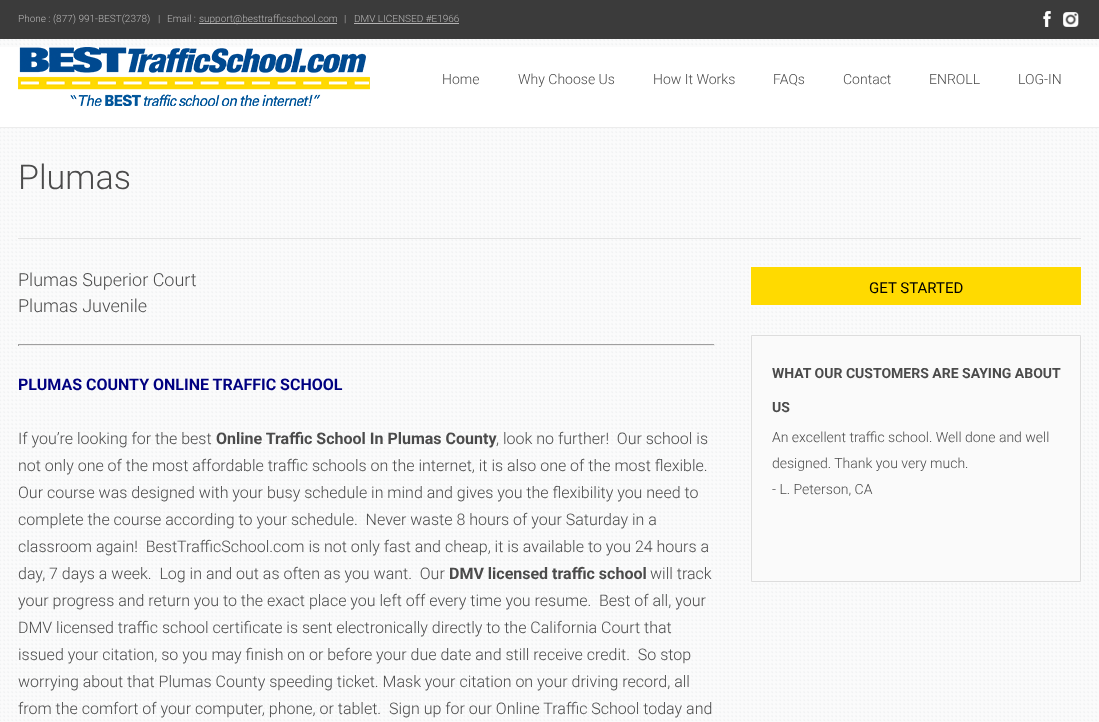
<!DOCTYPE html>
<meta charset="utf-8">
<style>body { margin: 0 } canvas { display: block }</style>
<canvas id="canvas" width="1099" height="722"></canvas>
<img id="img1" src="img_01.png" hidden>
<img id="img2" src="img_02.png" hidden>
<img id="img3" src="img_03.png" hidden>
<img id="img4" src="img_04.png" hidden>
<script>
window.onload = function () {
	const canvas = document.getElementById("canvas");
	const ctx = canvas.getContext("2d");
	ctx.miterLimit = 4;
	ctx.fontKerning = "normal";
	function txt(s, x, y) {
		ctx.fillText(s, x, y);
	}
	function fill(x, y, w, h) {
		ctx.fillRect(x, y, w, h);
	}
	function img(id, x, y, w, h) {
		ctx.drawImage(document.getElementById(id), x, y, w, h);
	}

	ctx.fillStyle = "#FFFFFF";
	fill(0, 0, 1099, 722);
	img("img1", 0, 39, 1099, 683);
	ctx.fillStyle = "#3B3B3B";
	fill(0, 0, 1099, 39);
	ctx.fillStyle = "#B5B4B4";
	fill(199, 23, 138, 1);
	fill(354, 23, 105, 1);
	img("img2", 1043, 11, 8, 16);
	img("img3", 1063, 12, 16, 15);
	ctx.fillStyle = "#FFFFFF";
	fill(0, 47, 1099, 80);
	ctx.fillStyle = "#ECECEC";
	fill(0, 127, 1099, 1);
	img("img4", 18, 47, 352, 59);
	ctx.fillStyle = "#E4E4E4";
	fill(18, 238, 1063, 1);
	ctx.fillStyle = "#9F9F9F";
	fill(18, 344, 697, 1);
	ctx.fillStyle = "#EEEEEE";
	fill(714, 344, 1, 2);
	fill(18, 345, 697, 1);
	ctx.fillStyle = "#9F9F9F";
	fill(18, 344, 1, 2);
	ctx.fillStyle = "#FFDA00";
	fill(751, 267, 330, 38);
	ctx.fillStyle = "#FAFAFA";
	ctx.beginPath();
	ctx.rect(751.5, 335.5, 329, 246);
	ctx.fill();
	ctx.strokeStyle = "#DDDDDD";
	ctx.stroke();
	ctx.font = "300 10px Roboto";
	ctx.fillStyle = "#B5B4B4";
	txt("Phone : (877) 991-BEST(2378)", 18, 22);
	txt("|", 158, 22);
	txt("Email :", 167, 22);
	txt("support@besttrafficschool.com", 199, 22);
	txt("|", 344, 22);
	txt("DMV LICENSED #E1966", 354, 22);
	ctx.font = "300 14px Roboto";
	ctx.fillStyle = "#4B4B4B";
	txt("Home", 442, 84);
	txt("Why Choose Us", 518, 84);
	txt("How It Works", 653, 84);
	txt("FAQs", 773, 84);
	txt("Contact", 843, 84);
	txt("ENROLL", 929, 84);
	txt("LOG-IN", 1018, 84);
	ctx.font = "300 34px Roboto";
	txt("Plumas", 18, 189);
	ctx.font = "300 18px Roboto";
	txt("Plumas Superior Court", 18, 286);
	txt("Plumas Juvenile", 18, 312);
	ctx.font = "bold 16px Roboto";
	ctx.fillStyle = "#000080";
	txt("PLUMAS COUNTY ONLINE TRAFFIC SCHOOL", 18, 390);
	ctx.font = "300 16px Roboto";
	ctx.fillStyle = "#4B4B4B";
	txt("If you’re looking for the best", 18, 444);
	ctx.font = "bold 16px Roboto";
	txt("Online Traffic School In Plumas County", 216, 444);
	ctx.font = "300 16px Roboto";
	txt(", look no further!  Our school is", 496, 444);
	txt("not only one of the most affordable traffic schools on the internet, it is also one of the most flexible.", 18, 471);
	txt("Our course was designed with your busy schedule in mind and gives you the flexibility you need to", 18, 498);
	txt("complete the course according to your schedule.  Never waste 8 hours of your Saturday in a", 18, 525);
	txt("classroom again!  BestTrafficSchool.com is not only fast and cheap, it is available to you 24 hours a", 18, 552);
	txt("day, 7 days a week.  Log in and out as often as you want.  Our", 18, 579);
	ctx.font = "bold 16px Roboto";
	txt("DMV licensed traffic school", 449, 579);
	ctx.font = "300 16px Roboto";
	txt("will track", 650, 579);
	txt("your progress and return you to the exact place you left off every time you resume.  Best of all, your", 18, 606);
	txt("DMV licensed traffic school certificate is sent electronically directly to the California Court that", 18, 633);
	txt("issued your citation, so you may finish on or before your due date and still receive credit.  So stop", 18, 660);
	txt("worrying about that Plumas County speeding ticket. Mask your citation on your driving record, all", 18, 687);
	txt("from the comfort of your computer, phone, or tablet.  Sign up for our Online Traffic School today and", 18, 714);
	ctx.font = "15px Roboto";
	ctx.fillStyle = "#000000";
	txt("GET STARTED", 869, 293);
	ctx.font = "bold 14px Roboto";
	ctx.fillStyle = "#4B4B4B";
	txt("WHAT OUR CUSTOMERS ARE SAYING ABOUT", 772, 378);
	txt("US", 772, 412);
	ctx.font = "300 14px Roboto";
	txt("An excellent traffic school. Well done and well", 772, 442);
	txt("designed. Thank you very much.", 772, 468);
	txt("- L. Peterson, CA", 772, 494);
};
</script>
